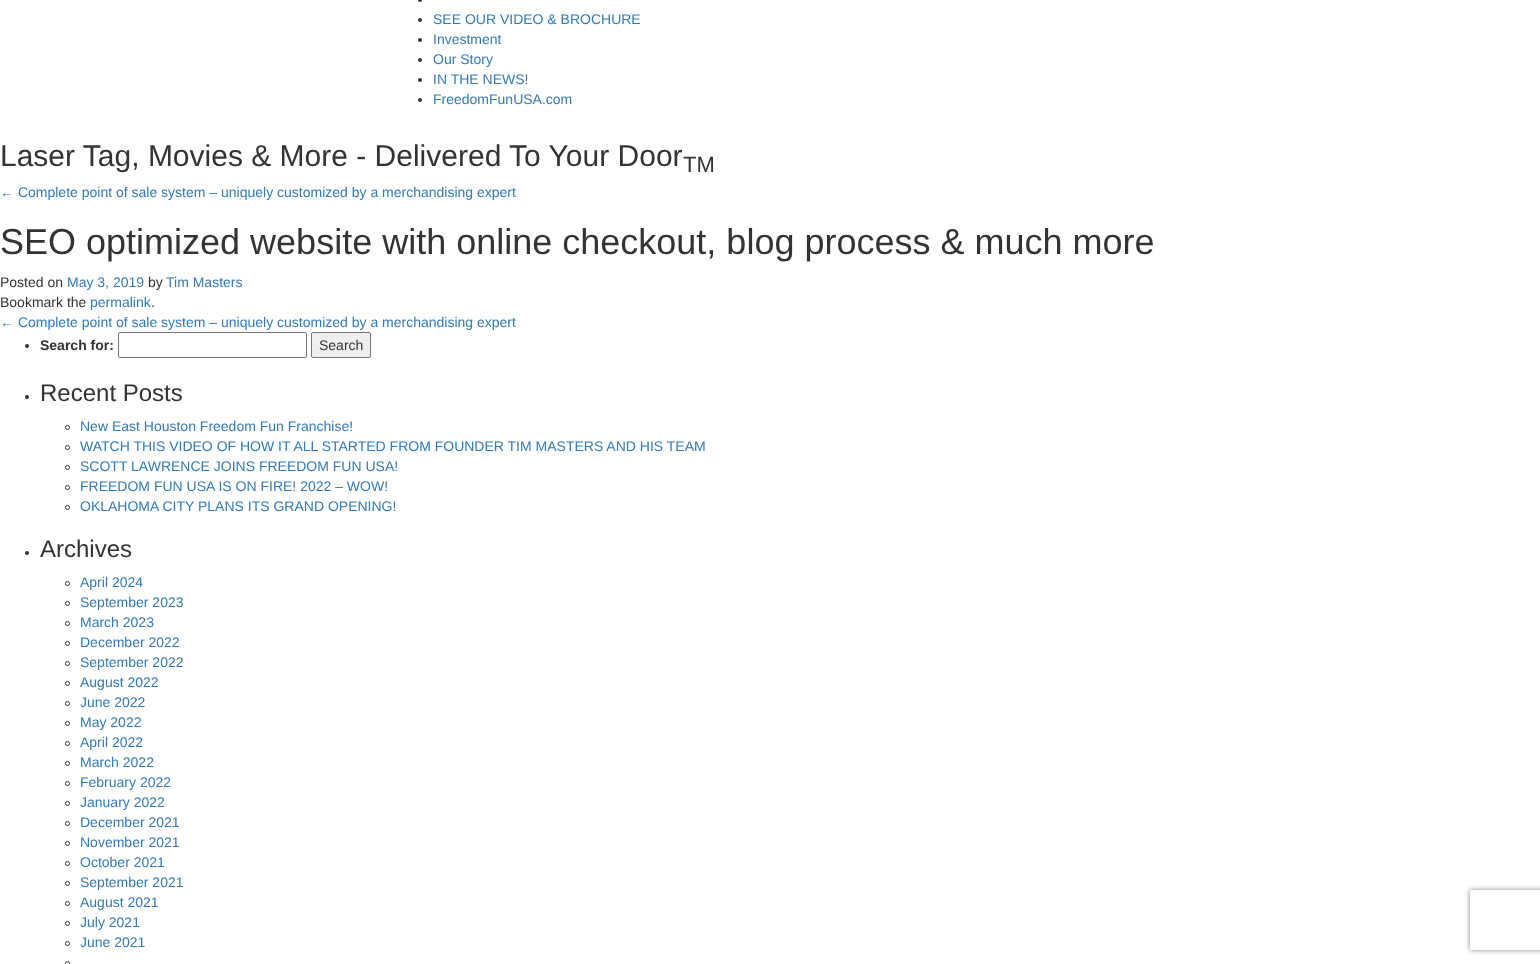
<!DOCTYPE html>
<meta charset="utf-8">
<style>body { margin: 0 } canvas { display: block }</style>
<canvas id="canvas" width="1540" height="964"></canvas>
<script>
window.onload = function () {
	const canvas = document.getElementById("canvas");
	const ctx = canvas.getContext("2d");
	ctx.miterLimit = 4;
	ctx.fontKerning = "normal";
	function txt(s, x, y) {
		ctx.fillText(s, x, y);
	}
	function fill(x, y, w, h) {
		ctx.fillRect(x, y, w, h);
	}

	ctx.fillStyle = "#FFFFFF";
	fill(0, 0, 1540, 964);
	ctx.fillStyle = "#333333";
	ctx.beginPath();
	ctx.arc(420, 0, 2, 0, Math.PI * 2);
	ctx.fill();
	ctx.beginPath();
	ctx.arc(420, 20, 2, 0, Math.PI * 2);
	ctx.fill();
	ctx.beginPath();
	ctx.arc(420, 40, 2, 0, Math.PI * 2);
	ctx.fill();
	ctx.beginPath();
	ctx.arc(420, 60, 2, 0, Math.PI * 2);
	ctx.fill();
	ctx.beginPath();
	ctx.arc(420, 80, 2, 0, Math.PI * 2);
	ctx.fill();
	ctx.beginPath();
	ctx.arc(420, 100, 2, 0, Math.PI * 2);
	ctx.fill();
	ctx.beginPath();
	ctx.arc(27, 346, 2, 0, Math.PI * 2);
	ctx.fill();
	ctx.beginPath();
	ctx.roundRect(118.5, 332.5, 188, 25, 1.5);
	ctx.strokeStyle = "#767676";
	ctx.stroke();
	ctx.fillStyle = "#EFEFEF";
	ctx.beginPath();
	ctx.roundRect(311.5, 332.5, 59, 25, 1.5);
	ctx.fill();
	ctx.stroke();
	ctx.fillStyle = "#333333";
	ctx.beginPath();
	ctx.arc(27, 397, 2, 0, Math.PI * 2);
	ctx.fill();
	ctx.beginPath();
	ctx.arc(67.5, 427.5, 2, 0, Math.PI * 2);
	ctx.strokeStyle = "#333333";
	ctx.stroke();
	ctx.beginPath();
	ctx.arc(67.5, 447.5, 2, 0, Math.PI * 2);
	ctx.stroke();
	ctx.beginPath();
	ctx.arc(67.5, 467.5, 2, 0, Math.PI * 2);
	ctx.stroke();
	ctx.beginPath();
	ctx.arc(67.5, 487.5, 2, 0, Math.PI * 2);
	ctx.stroke();
	ctx.beginPath();
	ctx.arc(67.5, 507.5, 2, 0, Math.PI * 2);
	ctx.stroke();
	ctx.beginPath();
	ctx.arc(27, 553, 2, 0, Math.PI * 2);
	ctx.fill();
	ctx.beginPath();
	ctx.arc(67.5, 583.5, 2, 0, Math.PI * 2);
	ctx.stroke();
	ctx.beginPath();
	ctx.arc(67.5, 603.5, 2, 0, Math.PI * 2);
	ctx.stroke();
	ctx.beginPath();
	ctx.arc(67.5, 623.5, 2, 0, Math.PI * 2);
	ctx.stroke();
	ctx.beginPath();
	ctx.arc(67.5, 643.5, 2, 0, Math.PI * 2);
	ctx.stroke();
	ctx.beginPath();
	ctx.arc(67.5, 663.5, 2, 0, Math.PI * 2);
	ctx.stroke();
	ctx.beginPath();
	ctx.arc(67.5, 683.5, 2, 0, Math.PI * 2);
	ctx.stroke();
	ctx.beginPath();
	ctx.arc(67.5, 703.5, 2, 0, Math.PI * 2);
	ctx.stroke();
	ctx.beginPath();
	ctx.arc(67.5, 723.5, 2, 0, Math.PI * 2);
	ctx.stroke();
	ctx.beginPath();
	ctx.arc(67.5, 743.5, 2, 0, Math.PI * 2);
	ctx.stroke();
	ctx.beginPath();
	ctx.arc(67.5, 763.5, 2, 0, Math.PI * 2);
	ctx.stroke();
	ctx.beginPath();
	ctx.arc(67.5, 783.5, 2, 0, Math.PI * 2);
	ctx.stroke();
	ctx.beginPath();
	ctx.arc(67.5, 803.5, 2, 0, Math.PI * 2);
	ctx.stroke();
	ctx.beginPath();
	ctx.arc(67.5, 823.5, 2, 0, Math.PI * 2);
	ctx.stroke();
	ctx.beginPath();
	ctx.arc(67.5, 843.5, 2, 0, Math.PI * 2);
	ctx.stroke();
	ctx.beginPath();
	ctx.arc(67.5, 863.5, 2, 0, Math.PI * 2);
	ctx.stroke();
	ctx.beginPath();
	ctx.arc(67.5, 883.5, 2, 0, Math.PI * 2);
	ctx.stroke();
	ctx.beginPath();
	ctx.arc(67.5, 903.5, 2, 0, Math.PI * 2);
	ctx.stroke();
	ctx.beginPath();
	ctx.arc(67.5, 923.5, 2, 0, Math.PI * 2);
	ctx.stroke();
	ctx.beginPath();
	ctx.arc(67.5, 943.5, 2, 0, Math.PI * 2);
	ctx.stroke();
	ctx.beginPath();
	ctx.arc(67.5, 963.5, 2, 0, Math.PI * 2);
	ctx.stroke();
	ctx.save();
	ctx.beginPath();
	ctx.moveTo(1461, 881);
	ctx.lineTo(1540, 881);
	ctx.lineTo(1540, 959);
	ctx.lineTo(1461, 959);
	ctx.closePath();
	ctx.moveTo(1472, 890);
	ctx.lineTo(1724, 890);
	ctx.bezierCurveTo(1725, 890, 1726, 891, 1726, 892);
	ctx.lineTo(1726, 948);
	ctx.bezierCurveTo(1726, 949, 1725, 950, 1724, 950);
	ctx.lineTo(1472, 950);
	ctx.bezierCurveTo(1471, 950, 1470, 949, 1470, 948);
	ctx.lineTo(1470, 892);
	ctx.bezierCurveTo(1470, 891, 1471, 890, 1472, 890);
	ctx.closePath();
	ctx.clip("evenodd");
	ctx.fillStyle = "#808080";
	ctx.filter = "blur(2.5px)";
	ctx.beginPath();
	ctx.roundRect(1470, 890, 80, 60, 2);
	ctx.fill();
	ctx.filter = "none";
	ctx.restore();
	ctx.font = "14px Liberation Sans";
	ctx.fillStyle = "#337AB7";
	txt("SEE OUR VIDEO & BROCHURE", 433, 24);
	txt("Investment", 433, 44);
	txt("Our Story", 433, 64);
	txt("IN THE NEWS!", 433, 84);
	txt("FreedomFunUSA.com", 433, 104);
	ctx.font = "30px Liberation Sans";
	ctx.fillStyle = "#333333";
	txt("Laser Tag, Movies & More - Delivered To Your Door", 0, 166);
	ctx.font = "22px Liberation Sans";
	txt("TM", 683, 172);
	ctx.font = "14px Liberation Sans";
	ctx.fillStyle = "#337AB7";
	txt("← Complete point of sale system – uniquely customized by a merchandising expert", 0, 197);
	ctx.font = "36px Liberation Sans";
	ctx.fillStyle = "#333333";
	txt("SEO optimized website with online checkout, blog process & much more", 0, 254);
	ctx.font = "14px Liberation Sans";
	txt("Posted on", 0, 287);
	ctx.fillStyle = "#337AB7";
	txt("May 3, 2019", 67, 287);
	ctx.fillStyle = "#333333";
	txt("by", 148, 287);
	ctx.fillStyle = "#337AB7";
	txt("Tim Masters", 166, 287);
	ctx.fillStyle = "#333333";
	txt("Bookmark the", 0, 307);
	ctx.fillStyle = "#337AB7";
	txt("permalink", 90, 307);
	ctx.fillStyle = "#333333";
	txt(".", 151, 307);
	ctx.fillStyle = "#337AB7";
	txt("← Complete point of sale system – uniquely customized by a merchandising expert", 0, 327);
	ctx.font = "bold 14px Liberation Sans";
	ctx.fillStyle = "#333333";
	txt("Search for:", 40, 350);
	ctx.font = "14px Liberation Sans";
	txt("Search", 319, 350);
	ctx.font = "24px Liberation Sans";
	txt("Recent Posts", 40, 401);
	ctx.font = "14px Liberation Sans";
	ctx.fillStyle = "#337AB7";
	txt("New East Houston Freedom Fun Franchise!", 80, 431);
	txt("WATCH THIS VIDEO OF HOW IT ALL STARTED FROM FOUNDER TIM MASTERS AND HIS TEAM", 80, 451);
	txt("SCOTT LAWRENCE JOINS FREEDOM FUN USA!", 80, 471);
	txt("FREEDOM FUN USA IS ON FIRE! 2022 – WOW!", 80, 491);
	txt("OKLAHOMA CITY PLANS ITS GRAND OPENING!", 80, 511);
	ctx.font = "24px Liberation Sans";
	ctx.fillStyle = "#333333";
	txt("Archives", 40, 557);
	ctx.font = "14px Liberation Sans";
	ctx.fillStyle = "#337AB7";
	txt("April 2024", 80, 587);
	txt("September 2023", 80, 607);
	txt("March 2023", 80, 627);
	txt("December 2022", 80, 647);
	txt("September 2022", 80, 667);
	txt("August 2022", 80, 687);
	txt("June 2022", 80, 707);
	txt("May 2022", 80, 727);
	txt("April 2022", 80, 747);
	txt("March 2022", 80, 767);
	txt("February 2022", 80, 787);
	txt("January 2022", 80, 807);
	txt("December 2021", 80, 827);
	txt("November 2021", 80, 847);
	txt("October 2021", 80, 867);
	txt("September 2021", 80, 887);
	txt("August 2021", 80, 907);
	txt("July 2021", 80, 927);
	txt("June 2021", 80, 947);
};
</script>
